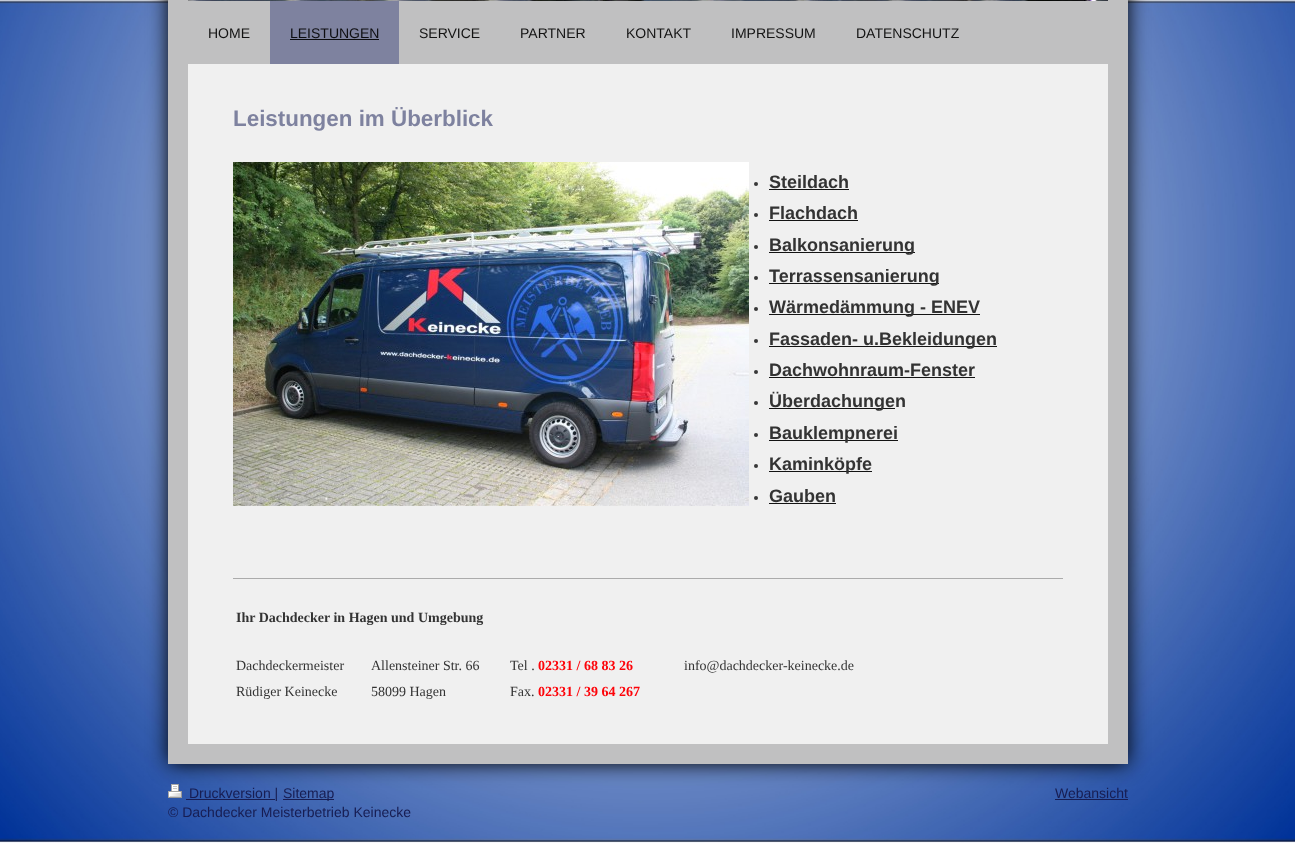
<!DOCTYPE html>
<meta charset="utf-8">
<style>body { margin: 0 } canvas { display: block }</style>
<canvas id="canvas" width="1295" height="843"></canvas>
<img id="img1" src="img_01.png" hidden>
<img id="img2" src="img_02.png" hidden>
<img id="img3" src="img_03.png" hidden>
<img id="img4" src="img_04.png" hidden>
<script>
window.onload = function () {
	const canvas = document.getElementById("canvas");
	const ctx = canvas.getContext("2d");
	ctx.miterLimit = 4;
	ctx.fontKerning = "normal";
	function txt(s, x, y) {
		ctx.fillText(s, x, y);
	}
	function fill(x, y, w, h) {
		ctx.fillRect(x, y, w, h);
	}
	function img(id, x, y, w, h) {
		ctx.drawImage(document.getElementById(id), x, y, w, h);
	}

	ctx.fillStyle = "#FFFFFF";
	fill(0, 0, 1295, 843);
	img("img1", 0, 0, 1295, 843);
	ctx.fillStyle = "#000000";
	ctx.filter = "blur(10px)";
	ctx.beginPath();
	ctx.rect(168, -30, 960, 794);
	ctx.fill();
	ctx.filter = "none";
	ctx.fillStyle = "#C0C0C1";
	fill(168, 0, 960, 764);
	img("img2", 188, 0, 920, 1);
	ctx.fillStyle = "#7E829F";
	fill(270, 1, 129, 63);
	ctx.fillStyle = "#0D0D10";
	fill(290, 39, 89, 1);
	ctx.fillStyle = "#F0F0F0";
	fill(188, 64, 920, 680);
	img("img3", 233, 162, 516, 344);
	ctx.fillStyle = "#383838";
	ctx.beginPath();
	ctx.arc(756, 184, 2, 0, Math.PI * 2);
	ctx.fill();
	ctx.fillStyle = "#131313";
	fill(769, 189, 80, 1);
	ctx.fillStyle = "#383838";
	ctx.beginPath();
	ctx.arc(756, 215, 2, 0, Math.PI * 2);
	ctx.fill();
	ctx.fillStyle = "#131313";
	fill(769, 220, 89, 1);
	ctx.fillStyle = "#383838";
	ctx.beginPath();
	ctx.arc(756, 247, 2, 0, Math.PI * 2);
	ctx.fill();
	ctx.fillStyle = "#131313";
	fill(769, 252, 146, 1);
	ctx.fillStyle = "#383838";
	ctx.beginPath();
	ctx.arc(756, 278, 2, 0, Math.PI * 2);
	ctx.fill();
	ctx.fillStyle = "#131313";
	fill(769, 283, 170, 1);
	ctx.fillStyle = "#383838";
	ctx.beginPath();
	ctx.arc(756, 309, 2, 0, Math.PI * 2);
	ctx.fill();
	ctx.fillStyle = "#131313";
	fill(769, 314, 211, 1);
	ctx.fillStyle = "#383838";
	ctx.beginPath();
	ctx.arc(756, 341, 2, 0, Math.PI * 2);
	ctx.fill();
	ctx.fillStyle = "#131313";
	fill(769, 346, 228, 1);
	ctx.fillStyle = "#383838";
	ctx.beginPath();
	ctx.arc(756, 372, 2, 0, Math.PI * 2);
	ctx.fill();
	ctx.fillStyle = "#131313";
	fill(769, 377, 206, 1);
	ctx.fillStyle = "#383838";
	ctx.beginPath();
	ctx.arc(756, 403, 2, 0, Math.PI * 2);
	ctx.fill();
	ctx.fillStyle = "#131313";
	fill(769, 408, 126, 1);
	ctx.fillStyle = "#383838";
	ctx.beginPath();
	ctx.arc(756, 435, 2, 0, Math.PI * 2);
	ctx.fill();
	ctx.fillStyle = "#131313";
	fill(769, 440, 129, 1);
	ctx.fillStyle = "#383838";
	ctx.beginPath();
	ctx.arc(756, 466, 2, 0, Math.PI * 2);
	ctx.fill();
	ctx.fillStyle = "#131313";
	fill(769, 471, 103, 1);
	ctx.fillStyle = "#383838";
	ctx.beginPath();
	ctx.arc(756, 498, 2, 0, Math.PI * 2);
	ctx.fill();
	ctx.fillStyle = "#131313";
	fill(769, 503, 67, 1);
	ctx.fillStyle = "#ABABAB";
	fill(233, 578, 830, 1);
	img("img4", 168, 784, 14, 14);
	ctx.fillStyle = "#171D52";
	fill(186, 799, 89, 1);
	fill(283, 799, 51, 1);
	fill(1055, 799, 73, 1);
	ctx.font = "14px Liberation Sans";
	ctx.fillStyle = "#131313";
	txt("HOME", 208, 38);
	ctx.fillStyle = "#0D0D10";
	txt("LEISTUNGEN", 290, 38);
	ctx.fillStyle = "#131313";
	txt("SERVICE", 419, 38);
	txt("PARTNER", 520, 38);
	txt("KONTAKT", 626, 38);
	txt("IMPRESSUM", 731, 38);
	txt("DATENSCHUTZ", 856, 38);
	ctx.font = "bold 22.4px Liberation Sans";
	ctx.fillStyle = "#7E829F";
	txt("Leistungen im Überblick", 233, 126);
	ctx.font = "bold 18px Liberation Sans";
	ctx.fillStyle = "#333333";
	txt("Steildach", 769, 188);
	txt("Flachdach", 769, 219);
	txt("Balkonsanierung", 769, 251);
	txt("Terrassensanierung", 769, 282);
	txt("Wärmedämmung - ENEV", 769, 313);
	txt("Fassaden- u.Bekleidungen", 769, 345);
	txt("Dachwohnraum-Fenster", 769, 376);
	txt("Überdachungen", 769, 407);
	txt("Bauklempnerei", 769, 439);
	txt("Kaminköpfe", 769, 470);
	txt("Gauben", 769, 502);
	ctx.font = "bold 14px Liberation Serif";
	txt("Ihr Dachdecker in Hagen und Umgebung", 236, 622);
	ctx.font = "14px Liberation Serif";
	txt("Dachdeckermeister", 236, 670);
	txt("Allensteiner Str. 66", 371, 670);
	txt("Tel .", 510, 670);
	ctx.font = "bold 14px Liberation Serif";
	ctx.fillStyle = "#FD040A";
	txt("02331 / 68 83 26", 538, 670);
	ctx.font = "14px Liberation Serif";
	ctx.fillStyle = "#333333";
	txt("info@dachdecker-keinecke.de", 684, 670);
	txt("Rüdiger Keinecke", 236, 696);
	txt("58099 Hagen", 371, 696);
	txt("Fax.", 510, 696);
	ctx.font = "bold 14px Liberation Serif";
	ctx.fillStyle = "#FD040A";
	txt("02331 / 39 64 267", 538, 696);
	ctx.font = "14px Liberation Sans";
	ctx.fillStyle = "#171D52";
	txt("Druckversion |", 189, 798);
	txt("Sitemap", 283, 798);
	ctx.save();
	ctx.beginPath();
	ctx.rect(168, 784, 960, 39);
	ctx.clip();
	txt("© Dachdecker Meisterbetrieb Keinecke", 168, 817);
	ctx.restore();
	txt("Webansicht", 1055, 798);
};
</script>
